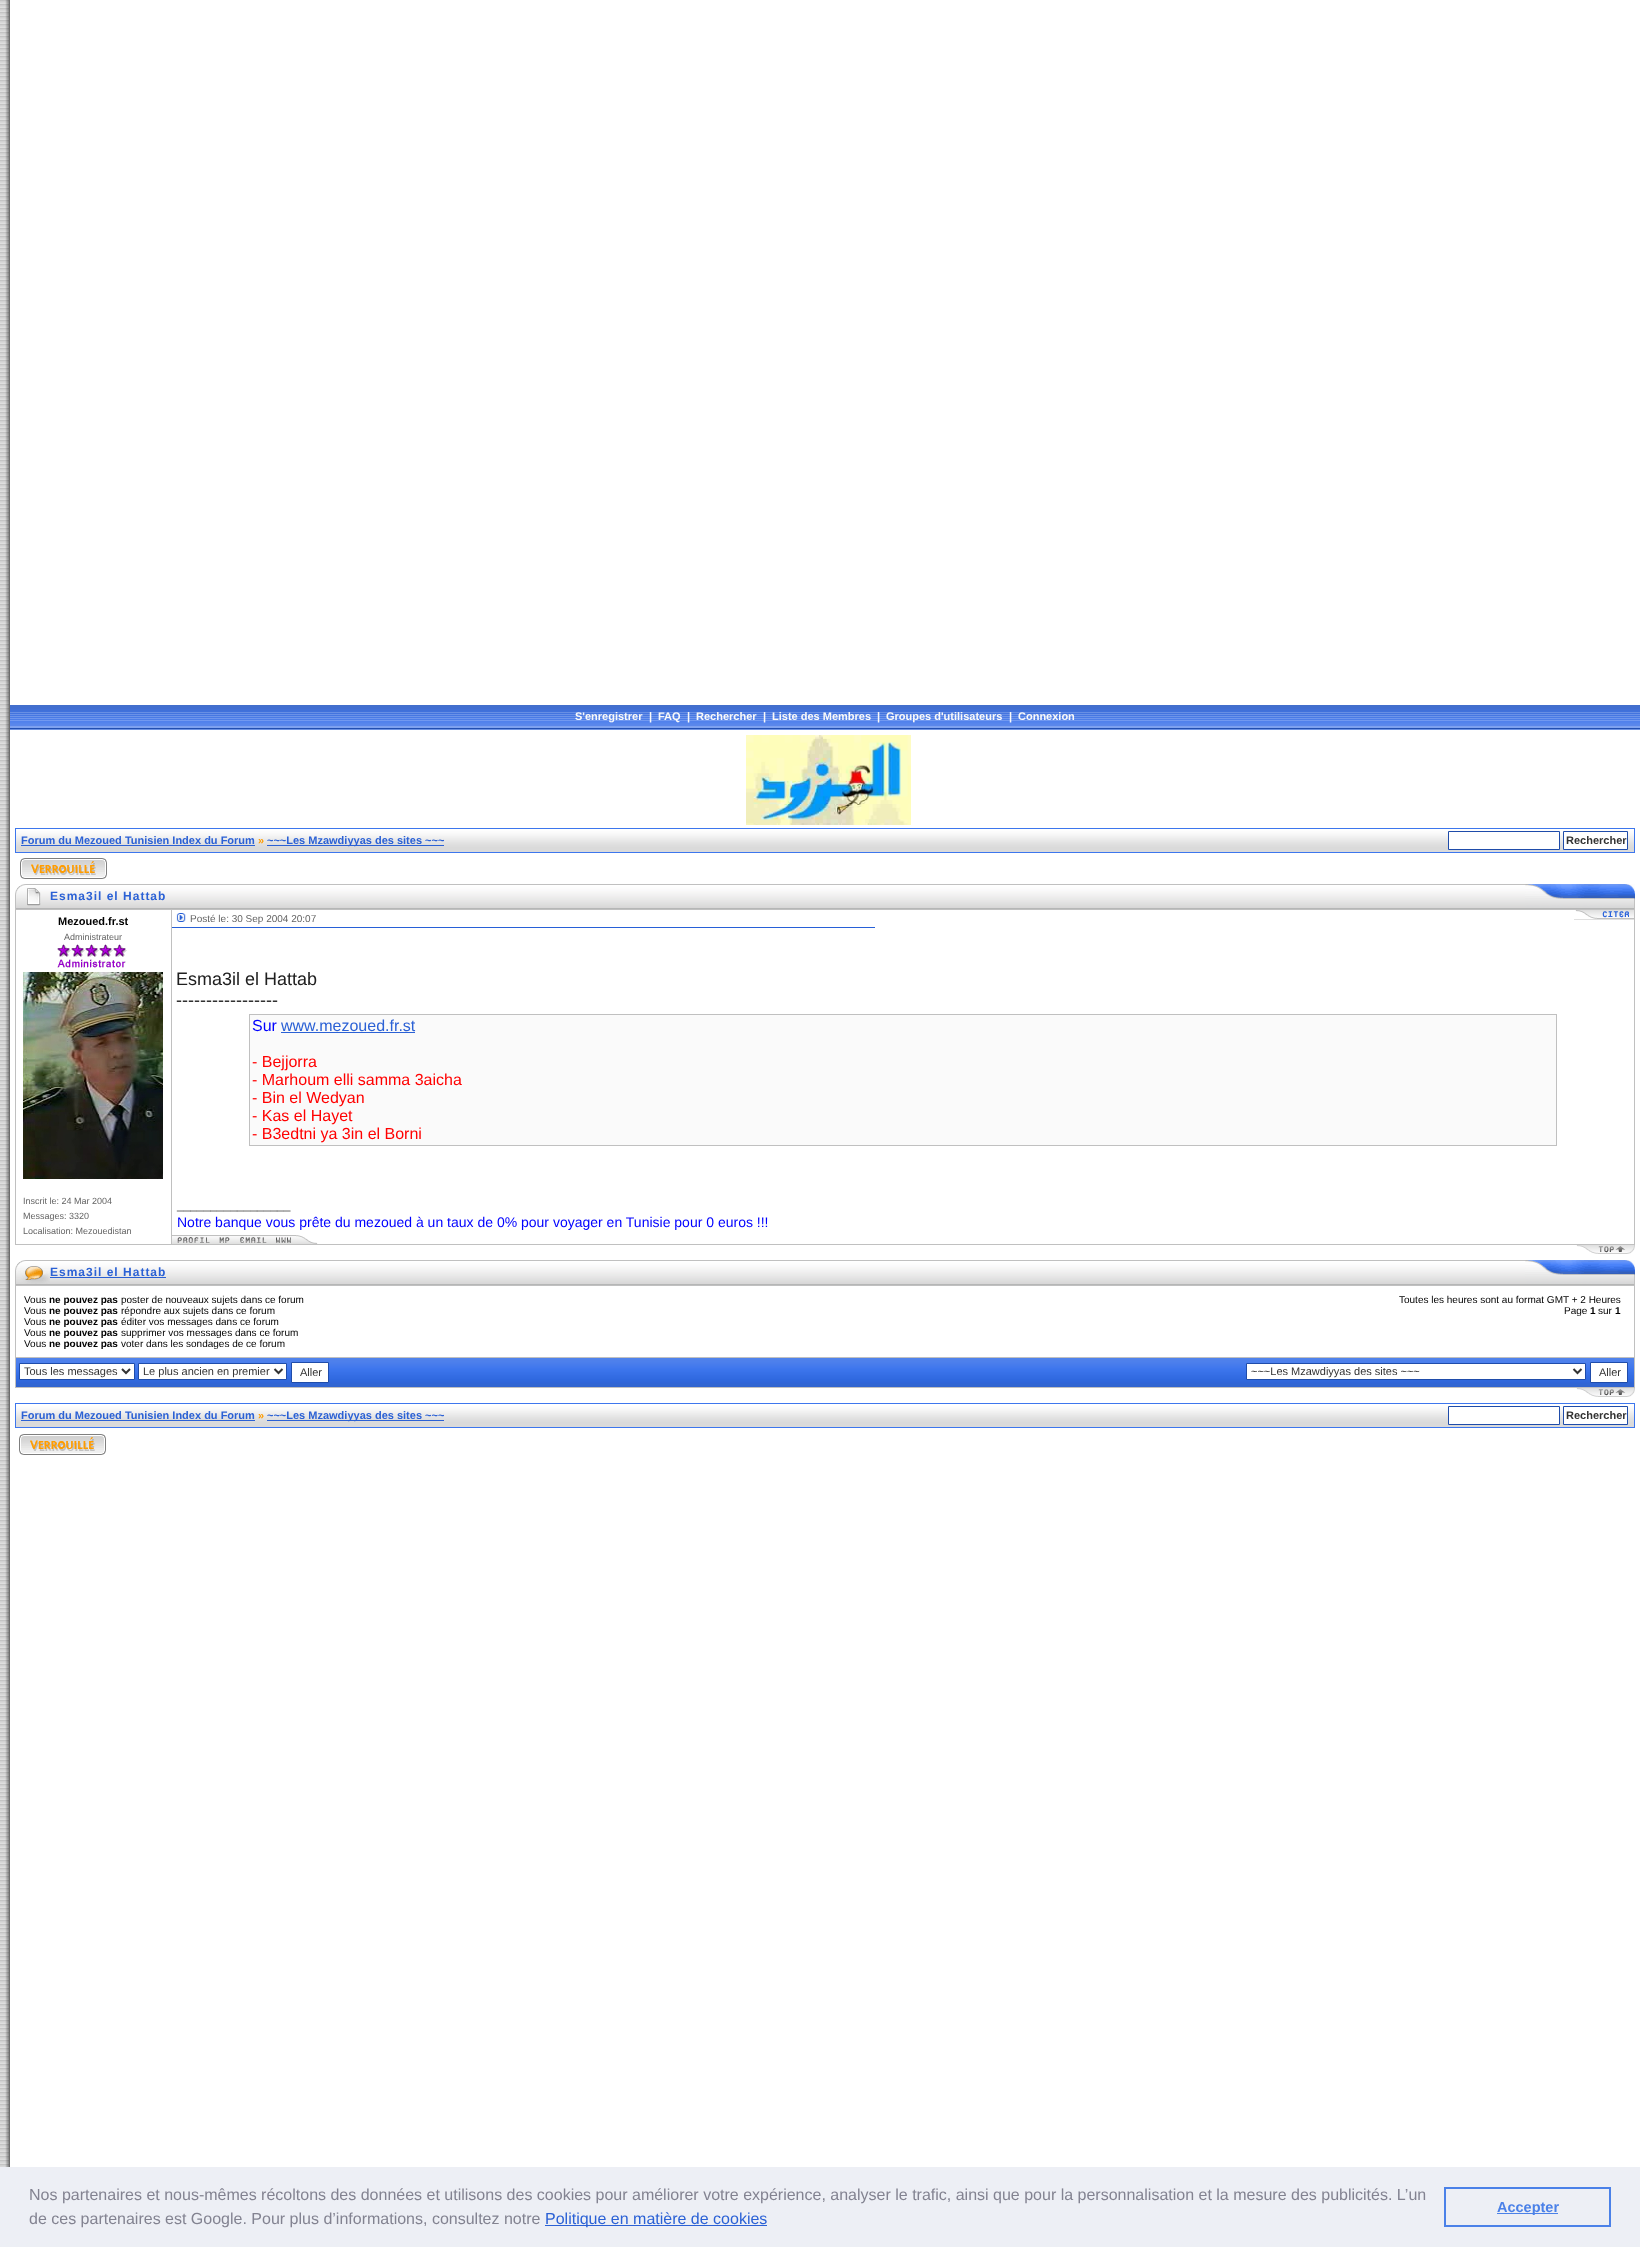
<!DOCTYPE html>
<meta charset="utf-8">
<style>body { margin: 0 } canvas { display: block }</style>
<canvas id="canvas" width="1640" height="2247"></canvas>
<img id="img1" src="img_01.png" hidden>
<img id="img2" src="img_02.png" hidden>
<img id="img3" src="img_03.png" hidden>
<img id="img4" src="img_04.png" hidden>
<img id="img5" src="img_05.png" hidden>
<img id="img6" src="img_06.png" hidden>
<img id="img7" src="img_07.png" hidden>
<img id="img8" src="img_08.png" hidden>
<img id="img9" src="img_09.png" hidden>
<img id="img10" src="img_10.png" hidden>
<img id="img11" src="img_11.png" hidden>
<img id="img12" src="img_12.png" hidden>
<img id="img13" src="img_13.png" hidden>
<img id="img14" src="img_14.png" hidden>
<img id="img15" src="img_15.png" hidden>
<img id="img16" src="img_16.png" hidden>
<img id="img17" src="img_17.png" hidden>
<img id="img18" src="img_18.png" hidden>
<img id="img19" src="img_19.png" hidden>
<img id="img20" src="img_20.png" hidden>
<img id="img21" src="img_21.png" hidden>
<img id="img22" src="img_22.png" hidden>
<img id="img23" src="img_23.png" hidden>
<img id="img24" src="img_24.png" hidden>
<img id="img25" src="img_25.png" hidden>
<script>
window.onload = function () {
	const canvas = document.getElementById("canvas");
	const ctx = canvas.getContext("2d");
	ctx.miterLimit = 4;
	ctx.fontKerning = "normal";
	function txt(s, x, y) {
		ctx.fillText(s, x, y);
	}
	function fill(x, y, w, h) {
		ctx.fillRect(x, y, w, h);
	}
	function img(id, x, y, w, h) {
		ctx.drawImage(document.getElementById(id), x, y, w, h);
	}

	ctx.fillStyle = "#FFFFFF";
	fill(0, 0, 1640, 2247);
	img("img1", 0, 0, 10, 2167);
	img("img2", 10, 705, 1630, 25);
	img("img3", 746, 735, 165, 90);
	img("img4", 16, 829, 1618, 23);
	ctx.strokeStyle = "#3D76ED";
	ctx.strokeRect(15.5, 828.5, 1619, 24);
	ctx.fillStyle = "#2B61D5";
	fill(21, 845, 234, 1);
	fill(267, 845, 177, 1);
	ctx.fillStyle = "#FFFFFF";
	ctx.beginPath();
	ctx.rect(1448.5, 831.5, 111, 18);
	ctx.fill();
	ctx.strokeStyle = "#1F4CAA";
	ctx.stroke();
	ctx.beginPath();
	ctx.rect(1563.5, 831.5, 64, 18);
	ctx.fill();
	ctx.stroke();
	img("img5", 20, 858, 87, 21);
	img("img6", 41, 884, 1484, 25);
	img("img7", 15, 884, 26, 25);
	img("img8", 1525, 884, 110, 25);
	ctx.strokeStyle = "#C0C0C0";
	ctx.strokeRect(15.5, 909.5, 1619, 335);
	img("img9", 57, 944, 70, 24);
	img("img10", 23, 972, 140, 207);
	ctx.fillStyle = "#C0C0C0";
	fill(171, 910, 1, 334);
	img("img11", 176, 913, 10, 9);
	img("img12", 1574, 919, 23, 1);
	img("img13", 1574, 910, 23, 9);
	img("img14", 1597, 910, 37, 10);
	img("img15", 1602, 911, 27, 7);
	ctx.fillStyle = "#2760D7";
	fill(172, 927, 703, 1);
	ctx.fillStyle = "#C0C0C0";
	fill(249, 1014, 1308, 132);
	ctx.fillStyle = "#FAFAFA";
	fill(250, 1015, 1306, 130);
	ctx.fillStyle = "#2B61D5";
	fill(281, 1032, 134, 1);
	img("img16", 172, 1235, 124, 9);
	img("img17", 177, 1237, 33, 6);
	img("img18", 219, 1237, 11, 6);
	img("img19", 240, 1237, 27, 6);
	img("img20", 276, 1237, 15, 6);
	img("img21", 296, 1235, 22, 9);
	img("img22", 1576, 1245, 59, 9);
	img("img23", 50, 1260, 1475, 25);
	img("img24", 15, 1260, 35, 25);
	ctx.fillStyle = "#295FD3";
	fill(50, 1277, 116, 1);
	img("img8", 1525, 1260, 110, 25);
	ctx.fillStyle = "#C0C0C0";
	fill(15, 1285, 1620, 103);
	ctx.fillStyle = "#FFFFFF";
	fill(16, 1286, 1618, 71);
	img("img25", 16, 1358, 1618, 29);
	ctx.beginPath();
	ctx.rect(19.5, 1363.5, 115, 16);
	ctx.fill();
	ctx.strokeStyle = "#1F4CAA";
	ctx.stroke();
	ctx.beginPath();
	ctx.moveTo(122, 1369);
	ctx.lineTo(126, 1373);
	ctx.lineTo(130, 1369);
	ctx.strokeStyle = "#333333";
	ctx.lineWidth = 2;
	ctx.stroke();
	ctx.beginPath();
	ctx.rect(138.5, 1363.5, 148, 16);
	ctx.fill();
	ctx.strokeStyle = "#1F4CAA";
	ctx.lineWidth = 1;
	ctx.stroke();
	ctx.beginPath();
	ctx.moveTo(274.5, 1369);
	ctx.lineTo(278.5, 1373);
	ctx.lineTo(282.5, 1369);
	ctx.strokeStyle = "#333333";
	ctx.lineWidth = 2;
	ctx.stroke();
	ctx.beginPath();
	ctx.rect(291.5, 1362.5, 37, 20);
	ctx.fill();
	ctx.strokeStyle = "#1F4CAA";
	ctx.lineWidth = 1;
	ctx.stroke();
	ctx.beginPath();
	ctx.rect(1246.5, 1363.5, 339, 16);
	ctx.fill();
	ctx.stroke();
	ctx.beginPath();
	ctx.moveTo(1573.5, 1369);
	ctx.lineTo(1577.5, 1373);
	ctx.lineTo(1581.5, 1369);
	ctx.strokeStyle = "#333333";
	ctx.lineWidth = 2;
	ctx.stroke();
	ctx.beginPath();
	ctx.rect(1590.5, 1362.5, 37, 20);
	ctx.fill();
	ctx.strokeStyle = "#1F4CAA";
	ctx.lineWidth = 1;
	ctx.stroke();
	img("img22", 1576, 1388, 59, 9);
	img("img4", 16, 1404, 1618, 23);
	ctx.strokeStyle = "#3D76ED";
	ctx.strokeRect(15.5, 1403.5, 1619, 24);
	ctx.fillStyle = "#2B61D5";
	fill(21, 1420, 234, 1);
	fill(267, 1420, 177, 1);
	ctx.fillStyle = "#FFFFFF";
	ctx.beginPath();
	ctx.rect(1448.5, 1406.5, 111, 18);
	ctx.fill();
	ctx.strokeStyle = "#1F4CAA";
	ctx.stroke();
	ctx.beginPath();
	ctx.rect(1563.5, 1406.5, 64, 18);
	ctx.fill();
	ctx.stroke();
	img("img5", 19, 1434, 87, 21);
	ctx.fillStyle = "#EDEFF5";
	fill(0, 2167, 1640, 80);
	ctx.fillStyle = "#2B61D5";
	fill(545, 2225, 222, 1);
	ctx.strokeStyle = "#4B81E8";
	ctx.lineWidth = 2;
	ctx.strokeRect(1445, 2188, 165, 38);
	ctx.fillStyle = "#4B81E8";
	fill(1497, 2213, 61, 1);
	ctx.font = "bold 11px Liberation Sans";
	ctx.fillStyle = "#FAFAFA";
	txt("S'enregistrer", 575, 720);
	txt("|", 649, 720);
	txt("FAQ", 658, 720);
	txt("|", 687, 720);
	txt("Rechercher", 696, 720);
	txt("|", 763, 720);
	txt("Liste des Membres", 772, 720);
	txt("|", 877, 720);
	txt("Groupes d'utilisateurs", 886, 720);
	txt("|", 1009, 720);
	txt("Connexion", 1018, 720);
	ctx.fillStyle = "#2B61D5";
	txt("Forum du Mezoued Tunisien Index du Forum", 21, 844);
	ctx.fillStyle = "#FF9C00";
	txt("»", 258, 844);
	ctx.fillStyle = "#2B61D5";
	txt("~~~Les Mzawdiyyas des sites ~~~", 267, 844);
	ctx.fillStyle = "#333333";
	txt("Rechercher", 1566, 844);
	ctx.letterSpacing = "1px";
	ctx.font = "bold 12px Liberation Sans";
	ctx.fillStyle = "#2B61D5";
	txt("Esma3il el Hattab", 50, 900);
	ctx.letterSpacing = "0px";
	ctx.font = "bold 11px Liberation Sans";
	ctx.fillStyle = "#000000";
	txt("Mezoued.fr.st", 58, 925);
	ctx.font = "9px Liberation Sans";
	ctx.fillStyle = "#646464";
	txt("Administrateur", 64, 940);
	txt("Inscrit le: 24 Mar 2004", 23, 1204);
	txt("Messages: 3320", 23, 1219);
	txt("Localisation: Mezouedistan", 23, 1234);
	ctx.font = "10px Liberation Sans";
	txt("Posté le: 30 Sep 2004 20:07", 190, 922);
	ctx.font = "18px Liberation Sans";
	ctx.fillStyle = "#202020";
	txt("Esma3il el Hattab", 176, 985);
	txt("-----------------", 176, 1006);
	ctx.font = "16px Liberation Sans";
	ctx.fillStyle = "#0000FF";
	txt("Sur", 252, 1031);
	ctx.fillStyle = "#2B61D5";
	txt("www.mezoued.fr.st", 281, 1031);
	ctx.fillStyle = "#FF0000";
	txt("- Bejjorra", 252, 1067);
	txt("- Marhoum elli samma 3aicha", 252, 1085);
	txt("- Bin el Wedyan", 252, 1103);
	txt("- Kas el Hayet", 252, 1121);
	txt("- B3edtni ya 3in el Borni", 252, 1139);
	ctx.font = "12px Liberation Sans";
	ctx.fillStyle = "#404040";
	txt("_________________", 177, 1209);
	ctx.font = "14px Liberation Sans";
	ctx.fillStyle = "#0000FF";
	txt("Notre banque vous prête du mezoued à un taux de 0% pour voyager en Tunisie pour 0 euros !!!", 177, 1227);
	ctx.letterSpacing = "1px";
	ctx.font = "bold 12px Liberation Sans";
	ctx.fillStyle = "#2B61D5";
	txt("Esma3il el Hattab", 50, 1276);
	ctx.letterSpacing = "0px";
	ctx.font = "10px Liberation Sans";
	ctx.fillStyle = "#000000";
	txt("Vous", 24, 1303);
	ctx.font = "bold 10px Liberation Sans";
	txt("ne pouvez pas", 49, 1303);
	ctx.font = "10px Liberation Sans";
	txt("poster de nouveaux sujets dans ce forum", 121, 1303);
	txt("Vous", 24, 1314);
	ctx.font = "bold 10px Liberation Sans";
	txt("ne pouvez pas", 49, 1314);
	ctx.font = "10px Liberation Sans";
	txt("répondre aux sujets dans ce forum", 121, 1314);
	txt("Vous", 24, 1325);
	ctx.font = "bold 10px Liberation Sans";
	txt("ne pouvez pas", 49, 1325);
	ctx.font = "10px Liberation Sans";
	txt("éditer vos messages dans ce forum", 121, 1325);
	txt("Vous", 24, 1336);
	ctx.font = "bold 10px Liberation Sans";
	txt("ne pouvez pas", 49, 1336);
	ctx.font = "10px Liberation Sans";
	txt("supprimer vos messages dans ce forum", 121, 1336);
	txt("Vous", 24, 1347);
	ctx.font = "bold 10px Liberation Sans";
	txt("ne pouvez pas", 49, 1347);
	ctx.font = "10px Liberation Sans";
	txt("voter dans les sondages de ce forum", 121, 1347);
	txt("Toutes les heures sont au format GMT + 2 Heures", 1399, 1303);
	txt("Page", 1564, 1314);
	ctx.font = "bold 10px Liberation Sans";
	txt("1", 1590, 1314);
	ctx.font = "10px Liberation Sans";
	txt("sur", 1598, 1314);
	ctx.font = "bold 10px Liberation Sans";
	txt("1", 1615, 1314);
	ctx.font = "11px Liberation Sans";
	ctx.fillStyle = "#333333";
	txt("Tous les messages", 24, 1375);
	txt("Le plus ancien en premier", 143, 1375);
	txt("Aller", 300, 1376);
	txt("~~~Les Mzawdiyyas des sites ~~~", 1251, 1375);
	txt("Aller", 1599, 1376);
	ctx.font = "bold 11px Liberation Sans";
	ctx.fillStyle = "#2B61D5";
	txt("Forum du Mezoued Tunisien Index du Forum", 21, 1419);
	ctx.fillStyle = "#FF9C00";
	txt("»", 258, 1419);
	ctx.fillStyle = "#2B61D5";
	txt("~~~Les Mzawdiyyas des sites ~~~", 267, 1419);
	ctx.fillStyle = "#333333";
	txt("Rechercher", 1566, 1419);
	ctx.font = "16px Liberation Sans";
	ctx.fillStyle = "#838391";
	txt("Nos partenaires et nous-mêmes récoltons des données et utilisons des cookies pour améliorer votre expérience, analyser le trafic, ainsi que pour la personnalisation et la mesure des publicités. L’un", 29, 2200);
	txt("de ces partenaires est Google. Pour plus d’informations, consultez notre", 29, 2224);
	ctx.fillStyle = "#2B61D5";
	txt("Politique en matière de cookies", 545, 2224);
	ctx.font = "bold 14.5px Liberation Sans";
	ctx.fillStyle = "#4B81E8";
	txt("Accepter", 1497, 2212);
};
</script>
